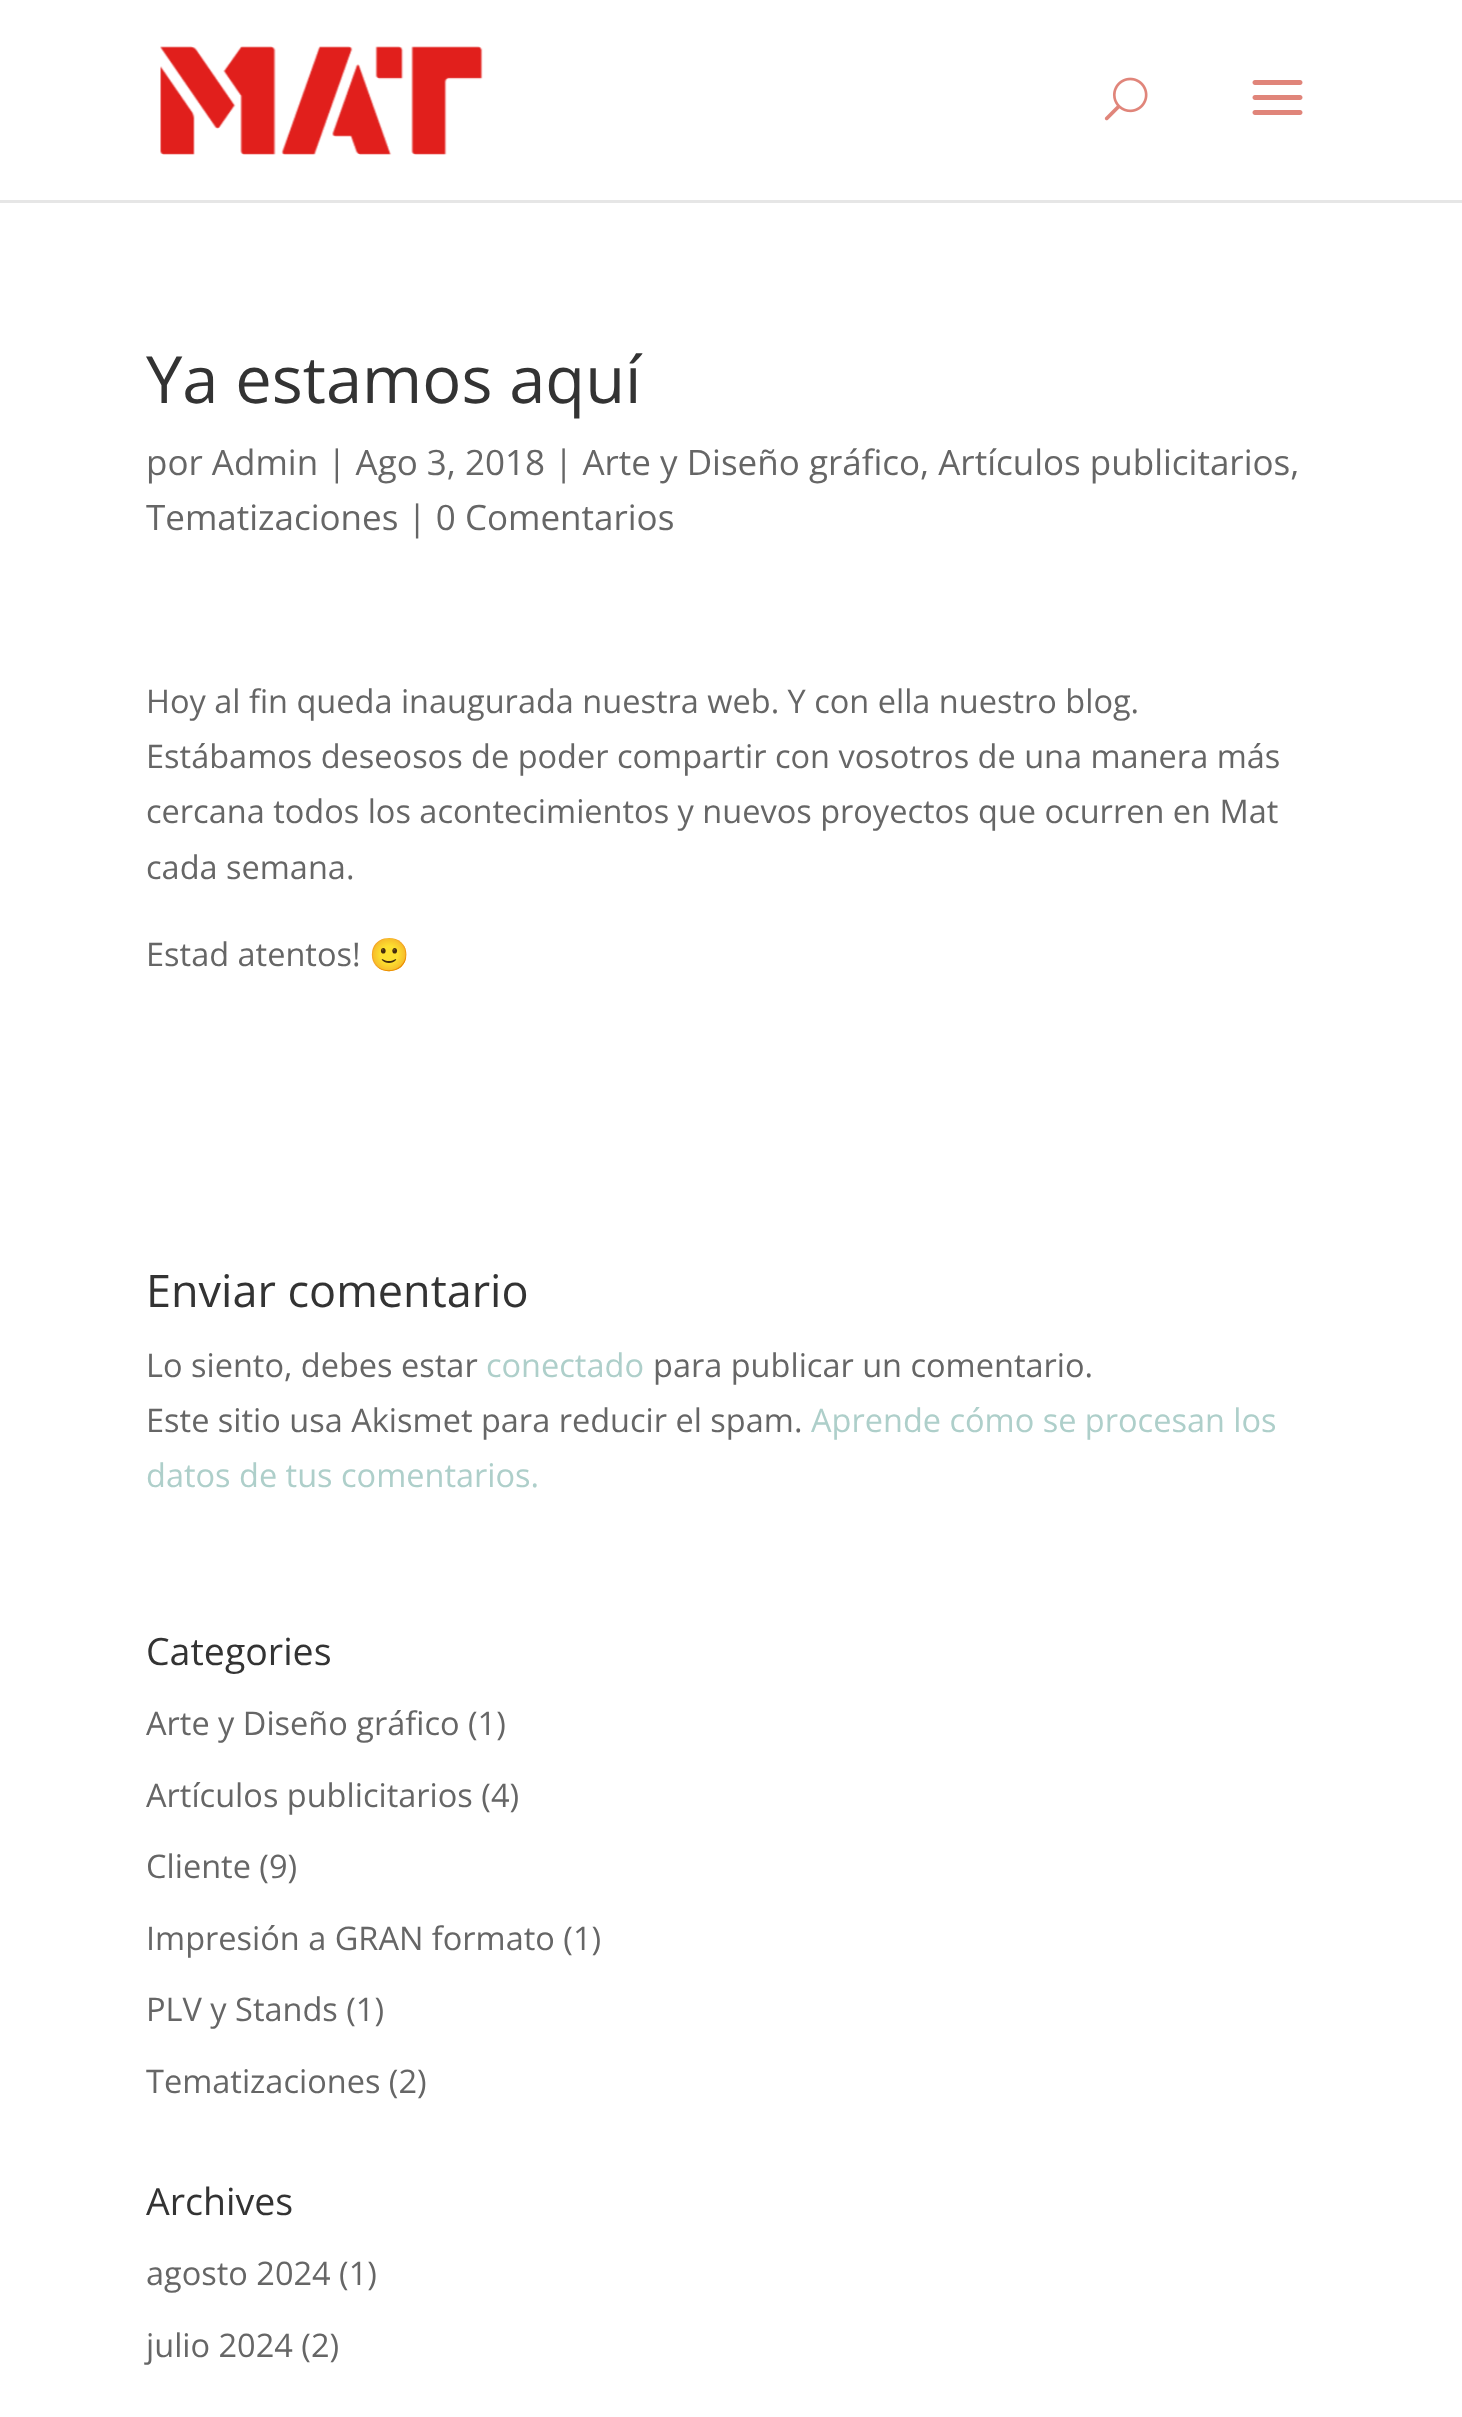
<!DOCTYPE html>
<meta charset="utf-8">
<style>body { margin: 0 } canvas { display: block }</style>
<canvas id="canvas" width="1462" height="2417"></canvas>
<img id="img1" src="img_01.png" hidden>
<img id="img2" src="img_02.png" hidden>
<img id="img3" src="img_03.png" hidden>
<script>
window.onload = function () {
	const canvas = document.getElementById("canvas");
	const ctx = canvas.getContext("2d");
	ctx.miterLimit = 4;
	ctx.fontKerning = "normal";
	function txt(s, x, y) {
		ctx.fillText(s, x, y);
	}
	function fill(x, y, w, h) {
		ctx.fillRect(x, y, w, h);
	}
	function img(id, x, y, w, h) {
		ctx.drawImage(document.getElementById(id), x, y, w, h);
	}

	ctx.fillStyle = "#FFFFFF";
	fill(0, 0, 1462, 2417);
	ctx.fillStyle = "#E6E6E6";
	ctx.beginPath();
	ctx.moveTo(0, 200);
	ctx.lineTo(0, 203);
	ctx.lineTo(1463, 203);
	ctx.lineTo(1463, 3);
	ctx.lineTo(1462, 3);
	ctx.lineTo(1462, 200);
	ctx.closePath();
	ctx.fill();
	img("img1", 160, 46, 323, 109);
	img("img2", 1104, 77, 44, 44);
	img("img3", 1252, 80, 51, 35);
	ctx.font = "65px Open Sans";
	ctx.fillStyle = "#333333";
	txt("Ya estamos aquí", 146, 403);
	ctx.font = "35px Open Sans";
	ctx.fillStyle = "#666666";
	txt("por Admin | Ago 3, 2018 | Arte y Diseño gráfico, Artículos publicitarios,", 146, 475);
	txt("Tematizaciones | 0 Comentarios", 146, 530);
	ctx.font = "32.5px Open Sans";
	txt("Hoy al fin queda inaugurada nuestra web. Y con ella nuestro blog.", 146, 713);
	txt("Estábamos deseosos de poder compartir con vosotros de una manera más", 146, 768);
	txt("cercana todos los acontecimientos y nuevos proyectos que ocurren en Mat", 146, 823);
	txt("cada semana.", 146, 879);
	txt("Estad atentos!", 146, 966);
	ctx.font = "32.5px Noto Color Emoji";
	txt("🙂", 369, 966);
	ctx.font = "45px Open Sans";
	ctx.fillStyle = "#333333";
	txt("Enviar comentario", 146, 1307);
	ctx.font = "32.5px Open Sans";
	ctx.fillStyle = "#666666";
	txt("Lo siento, debes estar", 146, 1377);
	ctx.fillStyle = "#AECFCA";
	txt("conectado", 486, 1377);
	ctx.fillStyle = "#666666";
	txt("para publicar un comentario.", 653, 1377);
	txt("Este sitio usa Akismet para reducir el spam.", 146, 1432);
	ctx.fillStyle = "#AECFCA";
	txt("Aprende cómo se procesan los", 811, 1432);
	txt("datos de tus comentarios.", 146, 1487);
	ctx.font = "37.5px Open Sans";
	ctx.fillStyle = "#333333";
	txt("Categories", 146, 1665);
	ctx.font = "32.5px Open Sans";
	ctx.fillStyle = "#666666";
	txt("Arte y Diseño gráfico (1)", 146, 1735);
	txt("Artículos publicitarios (4)", 146, 1807);
	txt("Cliente (9)", 146, 1878);
	txt("Impresión a GRAN formato (1)", 146, 1950);
	txt("PLV y Stands (1)", 146, 2021);
	txt("Tematizaciones (2)", 146, 2093);
	ctx.font = "37.5px Open Sans";
	ctx.fillStyle = "#333333";
	txt("Archives", 146, 2215);
	ctx.font = "32.5px Open Sans";
	ctx.fillStyle = "#666666";
	txt("agosto 2024 (1)", 146, 2285);
	txt("julio 2024 (2)", 146, 2357);
};
</script>
